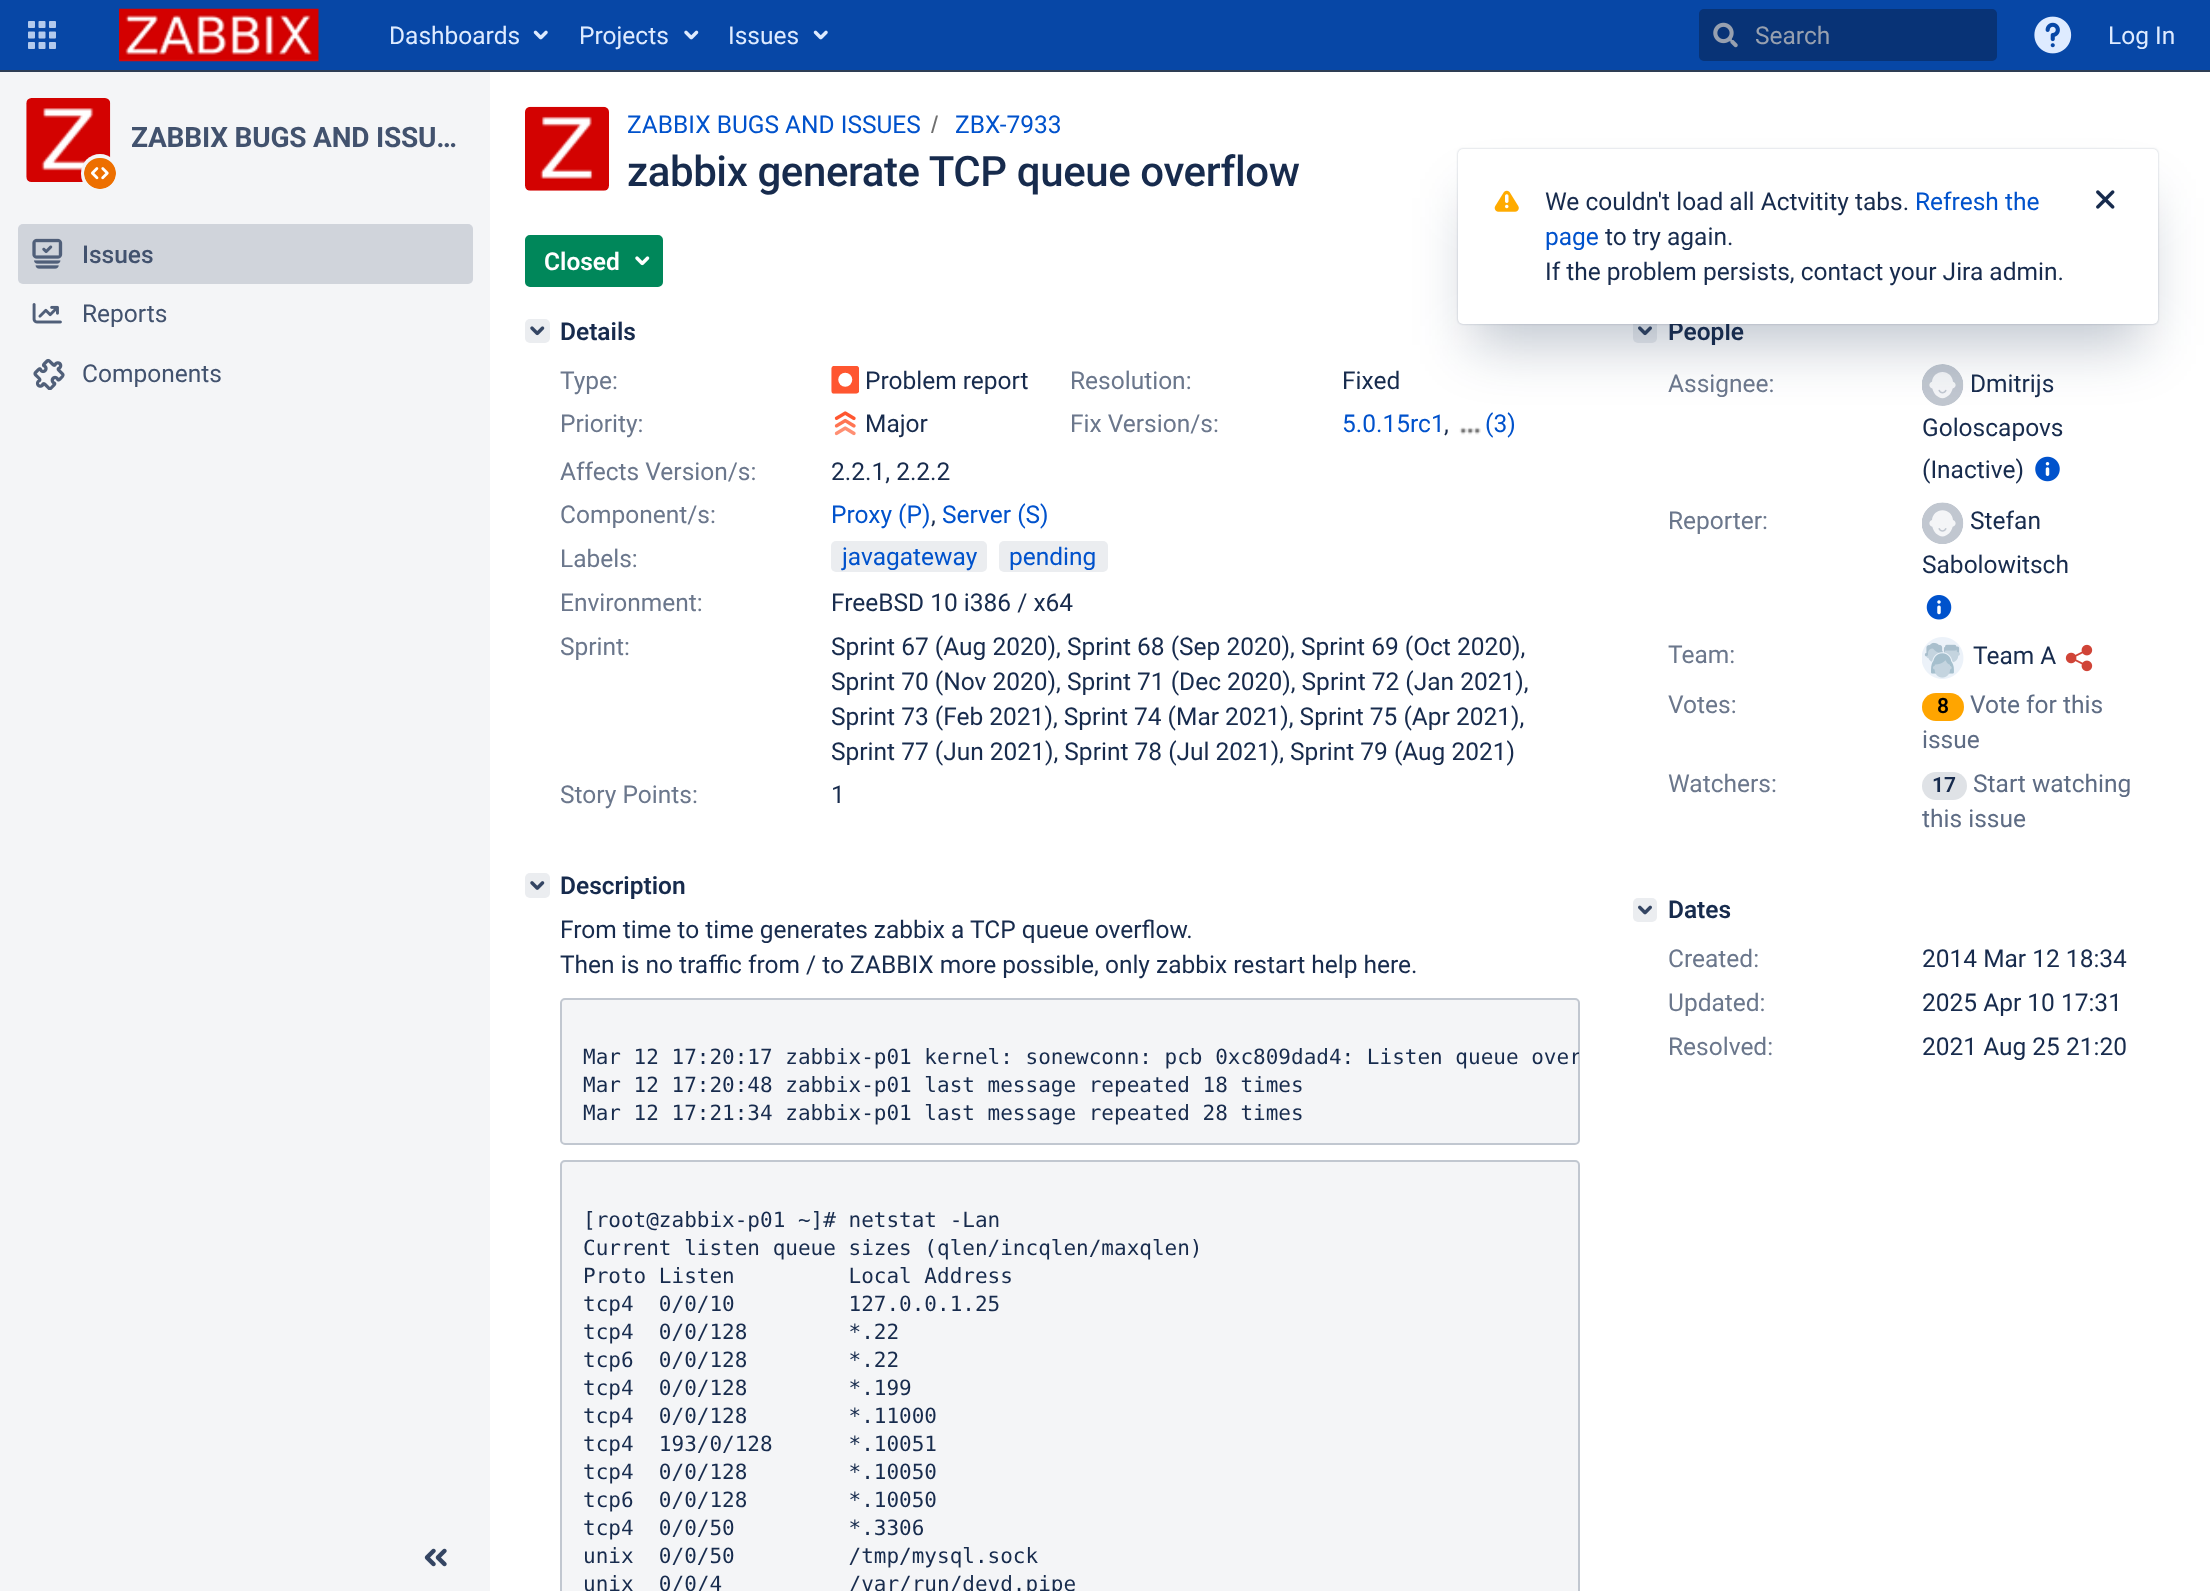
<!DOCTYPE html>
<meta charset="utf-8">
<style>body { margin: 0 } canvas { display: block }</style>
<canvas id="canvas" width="2210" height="1591"></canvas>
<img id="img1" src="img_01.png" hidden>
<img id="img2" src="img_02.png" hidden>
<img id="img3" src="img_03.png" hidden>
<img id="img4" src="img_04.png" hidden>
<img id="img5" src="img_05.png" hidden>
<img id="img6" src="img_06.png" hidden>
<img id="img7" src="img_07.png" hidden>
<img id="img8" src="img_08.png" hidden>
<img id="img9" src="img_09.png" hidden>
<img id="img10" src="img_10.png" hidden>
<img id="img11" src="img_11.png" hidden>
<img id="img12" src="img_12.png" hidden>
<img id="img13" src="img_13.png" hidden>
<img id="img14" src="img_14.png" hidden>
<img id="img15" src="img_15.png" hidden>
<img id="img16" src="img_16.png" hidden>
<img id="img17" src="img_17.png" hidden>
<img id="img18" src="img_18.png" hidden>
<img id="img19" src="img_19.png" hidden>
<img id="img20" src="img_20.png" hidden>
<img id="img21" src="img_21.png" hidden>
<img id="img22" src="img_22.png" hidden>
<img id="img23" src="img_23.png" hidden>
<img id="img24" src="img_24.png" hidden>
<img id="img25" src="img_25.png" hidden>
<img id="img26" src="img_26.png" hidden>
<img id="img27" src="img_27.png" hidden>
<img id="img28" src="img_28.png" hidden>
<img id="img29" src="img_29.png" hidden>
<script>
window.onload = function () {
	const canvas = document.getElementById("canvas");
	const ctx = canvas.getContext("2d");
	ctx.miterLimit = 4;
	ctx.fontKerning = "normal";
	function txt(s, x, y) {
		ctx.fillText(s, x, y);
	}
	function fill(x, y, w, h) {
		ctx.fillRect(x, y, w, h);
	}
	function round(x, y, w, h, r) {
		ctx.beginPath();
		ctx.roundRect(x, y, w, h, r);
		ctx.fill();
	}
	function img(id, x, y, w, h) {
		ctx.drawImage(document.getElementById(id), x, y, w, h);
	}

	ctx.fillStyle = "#FFFFFF";
	fill(0, 0, 2210, 1591);
	ctx.fillStyle = "#0747A6";
	fill(0, 0, 2210, 70);
	ctx.fillStyle = "#2E3D54";
	fill(0, 70, 2210, 2);
	img("img1", 28, 21, 28, 28);
	img("img2", 119, 8, 200, 54);
	img("img3", 533, 30, 15, 10);
	img("img4", 684, 30, 15, 10);
	img("img3", 813, 30, 15, 10);
	ctx.fillStyle = "#083376";
	round(1699, 9, 298, 52, 5);
	img("img5", 1713, 22, 25, 26);
	img("img6", 2034, 16, 38, 38);
	ctx.fillStyle = "#F4F5F7";
	fill(0, 72, 490, 1519);
	img("img7", 26, 98, 85, 84);
	round(81, 154, 38, 39, 19);
	img("img8", 84, 158, 32, 31);
	ctx.fillStyle = "#E1E4E9";
	round(18, 224, 455, 60, 5);
	ctx.fillStyle = "rgba(9, 30, 66, 0.08)";
	round(18, 224, 455, 60, 5);
	img("img9", 32, 238, 31, 31);
	img("img10", 32, 303, 30, 21);
	img("img11", 33, 358, 32, 32);
	img("img12", 424, 1548, 23, 19);
	img("img13", 525, 106, 84, 85);
	ctx.fillStyle = "#707070";
	ctx.beginPath();
	ctx.moveTo(933, 133);
	ctx.lineTo(938, 115.5);
	ctx.lineTo(936, 115.5);
	ctx.lineTo(931, 133);
	ctx.closePath();
	ctx.fill();
	ctx.fillStyle = "#00875A";
	ctx.beginPath();
	ctx.roundRect(526, 236, 136, 50, 4);
	ctx.fill();
	ctx.strokeStyle = "#00875A";
	ctx.lineWidth = 2;
	ctx.stroke();
	img("img14", 635, 256, 15, 10);
	ctx.fillStyle = "#EBEDF0";
	round(525, 319, 25, 24, 5);
	img("img15", 530, 326, 15, 10);
	img("img16", 831, 366, 28, 28);
	img("img17", 834, 411, 22, 25);
	img("img18", 1459, 427, 22, 8);
	round(831, 541, 156, 31, 5);
	round(999, 541, 109, 31, 5);
	round(525, 873, 25, 25, 5);
	img("img19", 530, 881, 15, 9);
	ctx.fillStyle = "#F4F5F7";
	ctx.beginPath();
	ctx.roundRect(561, 999, 1018, 145, 4);
	ctx.fill();
	ctx.strokeStyle = "#C1C7D0";
	ctx.stroke();
	ctx.beginPath();
	ctx.moveTo(565, 1160);
	ctx.lineTo(1575, 1160);
	ctx.bezierCurveTo(1578, 1160, 1580, 1162, 1580, 1165);
	ctx.lineTo(1580, 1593);
	ctx.lineTo(560, 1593);
	ctx.lineTo(560, 1165);
	ctx.bezierCurveTo(560, 1162, 562, 1160, 565, 1160);
	ctx.closePath();
	ctx.fill();
	ctx.beginPath();
	ctx.roundRect(561, 1161, 1018, 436, 4);
	ctx.stroke();
	ctx.fillStyle = "#EBEDF0";
	round(1633, 319, 24, 24, 5);
	img("img20", 1638, 326, 14, 10);
	img("img21", 1922, 364, 42, 42);
	img("img22", 2035, 456, 25, 26);
	img("img23", 1922, 502, 42, 42);
	img("img24", 1926, 595, 26, 25);
	img("img25", 1922, 637, 42, 42);
	img("img26", 2065, 644, 28, 28);
	ctx.fillStyle = "#FFA500";
	round(1922, 693, 42, 28, 14);
	ctx.fillStyle = "#DFE2E6";
	round(1922, 772, 45, 28, 14);
	ctx.fillStyle = "#EBEDF0";
	round(1633, 898, 24, 24, 5);
	img("img27", 1638, 905, 14, 10);
	ctx.fillStyle = "rgba(9, 30, 66, 0.25)";
	ctx.filter = "blur(1px)";
	ctx.beginPath();
	ctx.roundRect(1458, 149, 700, 175, 5);
	ctx.fill();
	ctx.filter = "none";
	ctx.filter = "blur(28px)";
	ctx.beginPath();
	ctx.rect(1472, 198, 672, 147);
	ctx.fill();
	ctx.filter = "none";
	ctx.font = "24.5px Roboto";
	ctx.fillStyle = "#DEEBFF";
	txt("Dashboards", 389, 44);
	txt("Projects", 579, 44);
	txt("Issues", 728, 44);
	ctx.fillStyle = "#97A0AF";
	txt("Search", 1755, 44);
	ctx.fillStyle = "#DEEBFF";
	txt("Log In", 2108, 44);
	ctx.letterSpacing = "-0.2px";
	ctx.font = "bold 28px Roboto";
	ctx.fillStyle = "#42526E";
	txt("ZABBIX BUGS AND ISSU…", 131, 147);
	ctx.letterSpacing = "0px";
	ctx.font = "500 24.5px Roboto";
	txt("Issues", 82, 263);
	ctx.font = "24.5px Roboto";
	txt("Reports", 82, 322);
	txt("Components", 82, 382);
	ctx.fillStyle = "#0052CC";
	txt("ZABBIX BUGS AND ISSUES", 627, 133);
	txt("ZBX-7933", 955, 133);
	ctx.letterSpacing = "-0.4px";
	ctx.font = "500 42px Roboto";
	ctx.fillStyle = "#172B4D";
	txt("zabbix generate TCP queue overflow", 627, 186);
	ctx.letterSpacing = "0px";
	ctx.font = "600 24.5px Roboto";
	ctx.fillStyle = "#FFFFFF";
	txt("Closed", 544, 270);
	ctx.fillStyle = "#172B4D";
	txt("Details", 560, 340);
	ctx.font = "24.5px Roboto";
	ctx.fillStyle = "#6B778C";
	txt("Type:", 560, 389);
	ctx.fillStyle = "#172B4D";
	txt("Problem report", 865, 389);
	ctx.fillStyle = "#6B778C";
	txt("Resolution:", 1070, 389);
	ctx.fillStyle = "#172B4D";
	txt("Fixed", 1342, 389);
	ctx.fillStyle = "#6B778C";
	txt("Priority:", 560, 432);
	ctx.fillStyle = "#172B4D";
	txt("Major", 865, 432);
	ctx.fillStyle = "#6B778C";
	txt("Fix Version/s:", 1070, 432);
	ctx.fillStyle = "#0052CC";
	txt("5.0.15rc1", 1342, 432);
	ctx.fillStyle = "#172B4D";
	txt(",", 1444, 432);
	ctx.fillStyle = "#0052CC";
	txt("(3)", 1485, 432);
	ctx.fillStyle = "#6B778C";
	txt("Affects Version/s:", 560, 480);
	ctx.fillStyle = "#172B4D";
	txt("2.2.1, 2.2.2", 831, 480);
	ctx.fillStyle = "#6B778C";
	txt("Component/s:", 560, 523);
	ctx.fillStyle = "#0052CC";
	txt("Proxy (P)", 831, 523);
	ctx.fillStyle = "#172B4D";
	txt(",", 931, 523);
	ctx.fillStyle = "#0052CC";
	txt("Server (S)", 942, 523);
	ctx.fillStyle = "#6B778C";
	txt("Labels:", 560, 567);
	ctx.fillStyle = "#0052CC";
	txt("javagateway", 842, 565);
	txt("pending", 1009, 565);
	ctx.fillStyle = "#6B778C";
	txt("Environment:", 560, 611);
	ctx.fillStyle = "#172B4D";
	txt("FreeBSD 10 i386 / x64", 831, 611);
	ctx.fillStyle = "#6B778C";
	txt("Sprint:", 560, 655);
	ctx.fillStyle = "#172B4D";
	txt("Sprint 67 (Aug 2020), Sprint 68 (Sep 2020), Sprint 69 (Oct 2020),", 831, 655);
	txt("Sprint 70 (Nov 2020), Sprint 71 (Dec 2020), Sprint 72 (Jan 2021),", 831, 690);
	txt("Sprint 73 (Feb 2021), Sprint 74 (Mar 2021), Sprint 75 (Apr 2021),", 831, 725);
	txt("Sprint 77 (Jun 2021), Sprint 78 (Jul 2021), Sprint 79 (Aug 2021)", 831, 760);
	ctx.fillStyle = "#6B778C";
	txt("Story Points:", 560, 803);
	ctx.fillStyle = "#172B4D";
	txt("1", 831, 803);
	ctx.font = "600 24.5px Roboto";
	txt("Description", 560, 894);
	ctx.font = "24.5px Roboto";
	txt("From time to time generates zabbix a TCP queue overflow.", 560, 938);
	txt("Then is no traffic from / to ZABBIX more possible, only zabbix restart help here.", 560, 973);
	ctx.save();
	ctx.beginPath();
	ctx.rect(562, 999, 1017, 144);
	ctx.clip();
	ctx.font = "21px DejaVu Sans Mono";
	txt("Mar 12 17:20:17 zabbix-p01 kernel: sonewconn: pcb 0xc809dad4: Listen queue over", 583, 1064);
	ctx.restore();
	ctx.font = "21px DejaVu Sans Mono";
	txt("Mar 12 17:20:48 zabbix-p01 last message repeated 18 times", 583, 1092);
	txt("Mar 12 17:21:34 zabbix-p01 last message repeated 28 times", 583, 1120);
	txt("[root@zabbix-p01 ~]# netstat -Lan", 583, 1227);
	txt("Current listen queue sizes (qlen/incqlen/maxqlen)", 583, 1255);
	txt("Proto Listen         Local Address", 583, 1283);
	txt("tcp4  0/0/10         127.0.0.1.25", 583, 1311);
	txt("tcp4  0/0/128        *.22", 583, 1339);
	txt("tcp6  0/0/128        *.22", 583, 1367);
	txt("tcp4  0/0/128        *.199", 583, 1395);
	txt("tcp4  0/0/128        *.11000", 583, 1423);
	txt("tcp4  193/0/128      *.10051", 583, 1451);
	txt("tcp4  0/0/128        *.10050", 583, 1479);
	txt("tcp6  0/0/128        *.10050", 583, 1507);
	txt("tcp4  0/0/50         *.3306", 583, 1535);
	txt("unix  0/0/50         /tmp/mysql.sock", 583, 1563);
	txt("unix  0/0/4          /var/run/devd.pipe", 583, 1591);
	ctx.font = "600 24.5px Roboto";
	txt("People", 1668, 340);
	ctx.font = "24.5px Roboto";
	ctx.fillStyle = "#6B778C";
	txt("Assignee:", 1668, 392);
	ctx.fillStyle = "#172B4D";
	txt("Dmitrijs", 1970, 392);
	txt("Goloscapovs", 1922, 436);
	txt("(Inactive)", 1922, 478);
	ctx.fillStyle = "#6B778C";
	txt("Reporter:", 1668, 529);
	ctx.fillStyle = "#172B4D";
	txt("Stefan", 1970, 529);
	txt("Sabolowitsch", 1922, 573);
	ctx.fillStyle = "#6B778C";
	txt("Team:", 1668, 663);
	ctx.fillStyle = "#172B4D";
	txt("Team A", 1973, 664);
	ctx.fillStyle = "#6B778C";
	txt("Votes:", 1668, 713);
	ctx.font = "600 21px Roboto";
	ctx.fillStyle = "#000000";
	txt("8", 1937, 713);
	ctx.font = "24.5px Roboto";
	ctx.fillStyle = "#5E6C84";
	txt("Vote for this", 1970, 713);
	txt("issue", 1922, 748);
	ctx.fillStyle = "#6B778C";
	txt("Watchers:", 1668, 792);
	ctx.font = "600 21px Roboto";
	ctx.fillStyle = "#172B4D";
	txt("17", 1932, 792);
	ctx.font = "24.5px Roboto";
	ctx.fillStyle = "#5E6C84";
	txt("Start watching", 1973, 792);
	txt("this issue", 1922, 827);
	ctx.font = "600 24.5px Roboto";
	ctx.fillStyle = "#172B4D";
	txt("Dates", 1668, 918);
	ctx.font = "24.5px Roboto";
	ctx.fillStyle = "#6B778C";
	txt("Created:", 1668, 967);
	ctx.fillStyle = "#172B4D";
	txt("2014 Mar 12 18:34", 1922, 967);
	ctx.fillStyle = "#6B778C";
	txt("Updated:", 1668, 1011);
	ctx.fillStyle = "#172B4D";
	txt("2025 Apr 10 17:31", 1922, 1011);
	ctx.fillStyle = "#6B778C";
	txt("Resolved:", 1668, 1055);
	ctx.fillStyle = "#172B4D";
	txt("2021 Aug 25 21:20", 1922, 1055);
	ctx.fillStyle = "#FFFFFF";
	round(1458, 149, 700, 175, 5);
	img("img28", 1494, 190, 25, 22);
	ctx.fillStyle = "#172B4D";
	txt("We couldn't load all Actvitity tabs.", 1545, 210);
	ctx.fillStyle = "#0052CC";
	txt("Refresh the", 1915, 210);
	img("img29", 2096, 190, 19, 19);
	txt("page", 1545, 245);
	ctx.fillStyle = "#172B4D";
	txt("to try again.", 1605, 245);
	txt("If the problem persists, contact your Jira admin.", 1545, 280);
};
</script>
